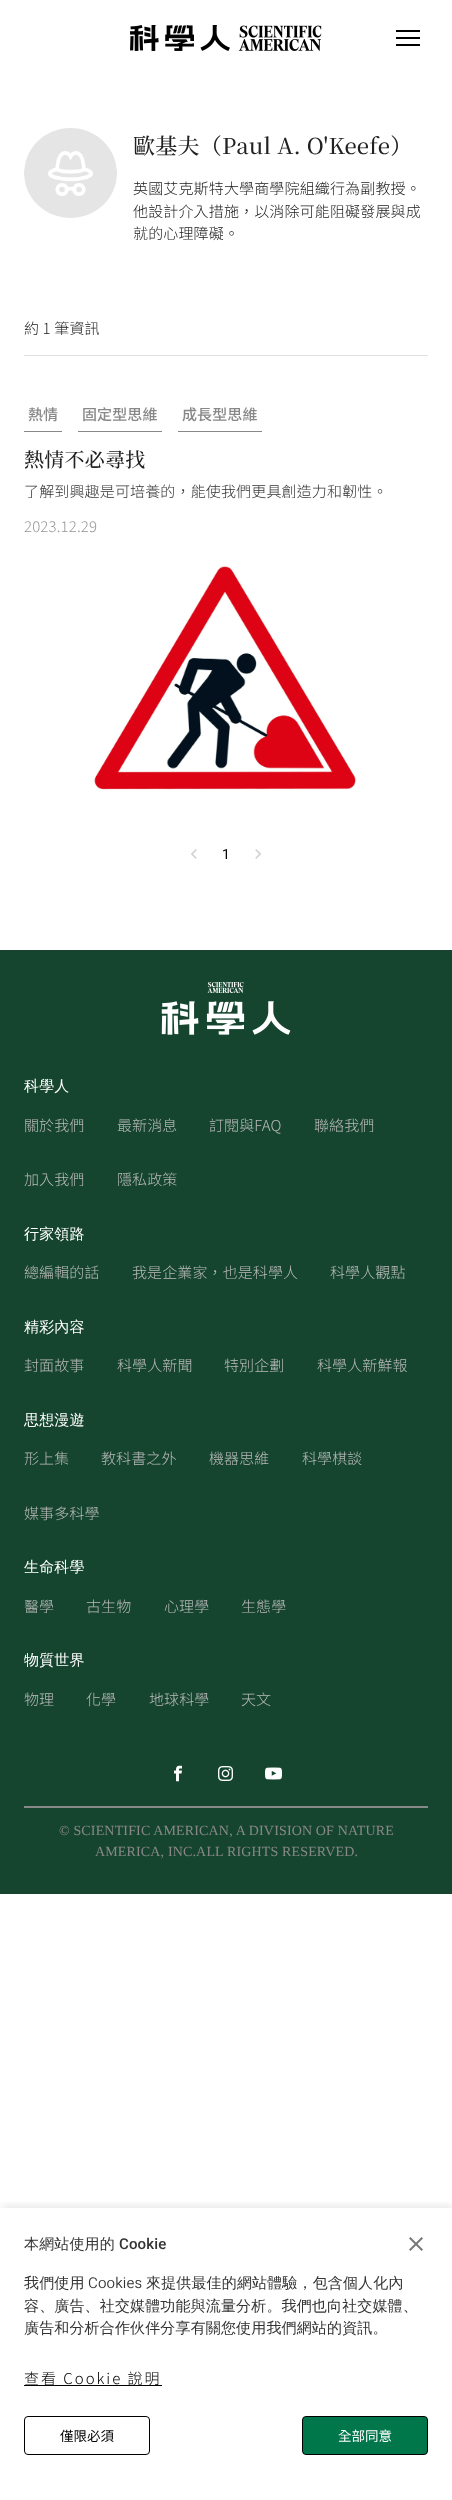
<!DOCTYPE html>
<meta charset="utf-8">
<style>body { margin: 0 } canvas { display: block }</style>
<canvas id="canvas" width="452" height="2500"></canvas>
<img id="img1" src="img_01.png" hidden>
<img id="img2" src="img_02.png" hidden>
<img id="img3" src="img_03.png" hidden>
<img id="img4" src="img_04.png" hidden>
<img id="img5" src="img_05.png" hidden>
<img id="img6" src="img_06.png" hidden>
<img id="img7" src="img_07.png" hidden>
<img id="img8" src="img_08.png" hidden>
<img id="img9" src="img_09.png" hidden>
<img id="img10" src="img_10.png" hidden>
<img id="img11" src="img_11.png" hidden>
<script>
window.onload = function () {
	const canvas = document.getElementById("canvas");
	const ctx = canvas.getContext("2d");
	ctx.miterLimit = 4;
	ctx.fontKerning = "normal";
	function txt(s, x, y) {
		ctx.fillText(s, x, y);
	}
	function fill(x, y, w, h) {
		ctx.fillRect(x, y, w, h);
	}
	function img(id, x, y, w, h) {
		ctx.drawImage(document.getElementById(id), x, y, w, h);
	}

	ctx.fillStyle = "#FFFFFF";
	fill(0, 0, 452, 2500);
	img("img1", 130, 25, 192, 26);
	img("img2", 396, 30, 24, 16);
	img("img3", 24, 128, 93, 90);
	ctx.fillStyle = "#E0E0E0";
	fill(24, 355, 404, 1);
	ctx.fillStyle = "#888888";
	fill(24, 431, 38, 1);
	fill(78, 431, 84, 1);
	fill(178, 431, 84, 1);
	img("img4", 94, 566, 262, 224);
	img("img5", 191, 849, 6, 10);
	img("img6", 255, 849, 6, 10);
	ctx.fillStyle = "#16452F";
	fill(0, 950, 452, 944);
	img("img7", 161, 982, 130, 53);
	img("img8", 174, 1765, 8, 17);
	img("img9", 218, 1766, 15, 15);
	img("img10", 265, 1767, 17, 13);
	ctx.fillStyle = "#888888";
	fill(24, 1806, 404, 2);
	ctx.save();
	ctx.beginPath();
	ctx.rect(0, 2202, 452, 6);
	ctx.clip();
	ctx.fillStyle = "rgba(0, 0, 0, 0.1)";
	ctx.filter = "blur(5px)";
	ctx.beginPath();
	ctx.rect(2, 2206, 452, 292);
	ctx.fill();
	ctx.filter = "none";
	ctx.restore();
	img("img11", 409, 2237, 14, 14);
	ctx.fillStyle = "#000000";
	fill(24, 2385, 138, 1);
	ctx.beginPath();
	ctx.roundRect(24.5, 2416.5, 125, 38, 3.5);
	ctx.strokeStyle = "#000000";
	ctx.stroke();
	ctx.fillStyle = "#00774B";
	ctx.beginPath();
	ctx.roundRect(302.5, 2416.5, 125, 38, 3.5);
	ctx.fill();
	ctx.stroke();
	ctx.letterSpacing = "0.25px";
	ctx.font = "500 22px Noto Serif TC";
	ctx.fillStyle = "#212121";
	txt("歐基夫（Paul A. O'Keefe）", 133, 154);
	ctx.letterSpacing = "0.15px";
	ctx.font = "300 15px Noto Sans TC";
	txt("英國艾克斯特大學商學院組織行為副教授。", 133, 194);
	txt("他設計介入措施，以消除可能阻礙發展與成", 133, 217);
	txt("就的心理障礙。", 133, 239);
	txt("約 1 筆資訊", 24, 334);
	ctx.letterSpacing = "0.1px";
	ctx.font = "500 15px Noto Sans TC";
	ctx.fillStyle = "#888888";
	txt("熱情", 28, 420);
	txt("固定型思維", 82, 420);
	txt("成長型思維", 182, 420);
	ctx.letterSpacing = "0.25px";
	ctx.font = "500 20px Noto Serif TC";
	ctx.fillStyle = "#212121";
	txt("熱情不必尋找", 24, 467);
	ctx.letterSpacing = "0.15px";
	ctx.font = "300 15px Noto Sans TC";
	ctx.fillStyle = "#333333";
	txt("了解到興趣是可培養的，能使我們更具創造力和韌性。", 24, 497);
	ctx.fillStyle = "#979797";
	txt("2023.12.29", 24, 532);
	ctx.letterSpacing = "0.1px";
	ctx.font = "14px Roboto";
	ctx.fillStyle = "#000000";
	txt("1", 222, 859);
	ctx.letterSpacing = "0.15px";
	ctx.font = "500 15px WenQuanYi Zen Hei";
	ctx.fillStyle = "#FFFFFF";
	txt("科學人", 24, 1091);
	ctx.letterSpacing = "0.1px";
	ctx.font = "300 15px Noto Sans TC";
	ctx.fillStyle = "#BBBBBB";
	txt("關於我們", 24, 1131);
	txt("最新消息", 117, 1131);
	txt("訂閱與FAQ", 209, 1131);
	txt("聯絡我們", 314, 1131);
	txt("加入我們", 24, 1185);
	txt("隱私政策", 117, 1185);
	ctx.letterSpacing = "0.15px";
	ctx.font = "500 15px WenQuanYi Zen Hei";
	ctx.fillStyle = "#FFFFFF";
	txt("行家領路", 24, 1239);
	ctx.letterSpacing = "0.1px";
	ctx.font = "300 15px Noto Sans TC";
	ctx.fillStyle = "#BBBBBB";
	txt("總編輯的話", 24, 1278);
	txt("我是企業家，也是科學人", 132, 1278);
	txt("科學人觀點", 330, 1278);
	ctx.letterSpacing = "0.15px";
	ctx.font = "500 15px WenQuanYi Zen Hei";
	ctx.fillStyle = "#FFFFFF";
	txt("精彩內容", 24, 1332);
	ctx.letterSpacing = "0.1px";
	ctx.font = "300 15px Noto Sans TC";
	ctx.fillStyle = "#BBBBBB";
	txt("封面故事", 24, 1371);
	txt("科學人新聞", 117, 1371);
	txt("特別企劃", 224, 1371);
	txt("科學人新鮮報", 317, 1371);
	ctx.letterSpacing = "0.15px";
	ctx.font = "500 15px WenQuanYi Zen Hei";
	ctx.fillStyle = "#FFFFFF";
	txt("思想漫遊", 24, 1425);
	ctx.letterSpacing = "0.1px";
	ctx.font = "300 15px Noto Sans TC";
	ctx.fillStyle = "#BBBBBB";
	txt("形上集", 24, 1464);
	txt("教科書之外", 101, 1464);
	txt("機器思維", 209, 1464);
	txt("科學棋談", 302, 1464);
	txt("媒事多科學", 24, 1519);
	ctx.letterSpacing = "0.15px";
	ctx.font = "500 15px WenQuanYi Zen Hei";
	ctx.fillStyle = "#FFFFFF";
	txt("生命科學", 24, 1572);
	ctx.letterSpacing = "0.1px";
	ctx.font = "300 15px Noto Sans TC";
	ctx.fillStyle = "#BBBBBB";
	txt("醫學", 24, 1612);
	txt("古生物", 86, 1612);
	txt("心理學", 164, 1612);
	txt("生態學", 241, 1612);
	ctx.letterSpacing = "0.15px";
	ctx.font = "500 15px WenQuanYi Zen Hei";
	ctx.fillStyle = "#FFFFFF";
	txt("物質世界", 24, 1665);
	ctx.letterSpacing = "0.1px";
	ctx.font = "300 15px Noto Sans TC";
	ctx.fillStyle = "#BBBBBB";
	txt("物理", 24, 1705);
	txt("化學", 86, 1705);
	txt("地球科學", 149, 1705);
	txt("天文", 241, 1705);
	ctx.letterSpacing = "0.15px";
	ctx.font = "14px Liberation Serif";
	ctx.fillStyle = "#888888";
	txt("© SCIENTIFIC AMERICAN, A DIVISION OF NATURE", 59, 1835);
	txt("AMERICA, INC.ALL RIGHTS RESERVED.", 95, 1856);
	ctx.font = "500 15px WenQuanYi Zen Hei";
	ctx.fillStyle = "#333333";
	txt("本網站使用的", 24, 2249);
	ctx.font = "500 15px Roboto";
	txt("Cookie", 119, 2249);
	ctx.font = "500 15px WenQuanYi Zen Hei";
	txt("我們使用", 24, 2288);
	ctx.font = "300 15px Roboto";
	txt("Cookies", 88, 2288);
	ctx.font = "500 15px WenQuanYi Zen Hei";
	txt("來提供最佳的網站體驗，包含個人化內", 146, 2288);
	txt("容、廣告、社交媒體功能與流量分析。我們也向社交媒體、", 24, 2311);
	txt("廣告和分析合作伙伴分享有關您使用我們網站的資訊。", 24, 2333);
	ctx.letterSpacing = "2px";
	ctx.font = "300 15px Noto Sans TC";
	ctx.fillStyle = "#000000";
	txt("查看 Cookie 說明", 24, 2384);
	ctx.letterSpacing = "0px";
	ctx.font = "13.5px Noto Sans TC";
	txt("僅限必須", 60, 2441);
	ctx.fillStyle = "#FFFFFF";
	txt("全部同意", 338, 2441);
};
</script>
